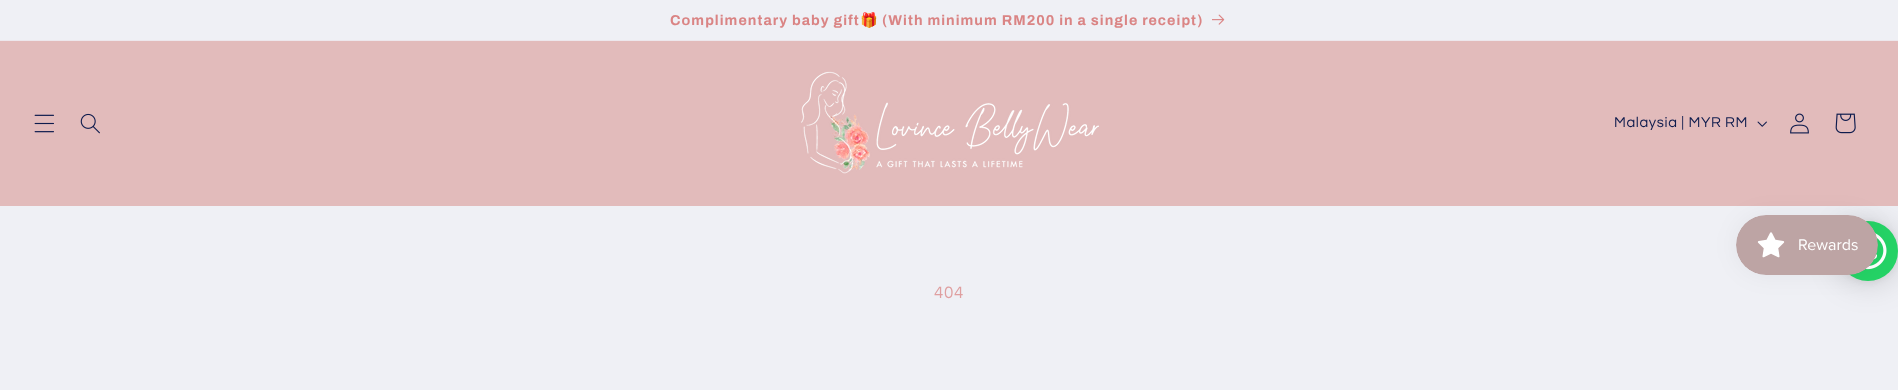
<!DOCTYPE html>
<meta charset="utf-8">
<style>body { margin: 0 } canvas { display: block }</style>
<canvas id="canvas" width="1898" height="390"></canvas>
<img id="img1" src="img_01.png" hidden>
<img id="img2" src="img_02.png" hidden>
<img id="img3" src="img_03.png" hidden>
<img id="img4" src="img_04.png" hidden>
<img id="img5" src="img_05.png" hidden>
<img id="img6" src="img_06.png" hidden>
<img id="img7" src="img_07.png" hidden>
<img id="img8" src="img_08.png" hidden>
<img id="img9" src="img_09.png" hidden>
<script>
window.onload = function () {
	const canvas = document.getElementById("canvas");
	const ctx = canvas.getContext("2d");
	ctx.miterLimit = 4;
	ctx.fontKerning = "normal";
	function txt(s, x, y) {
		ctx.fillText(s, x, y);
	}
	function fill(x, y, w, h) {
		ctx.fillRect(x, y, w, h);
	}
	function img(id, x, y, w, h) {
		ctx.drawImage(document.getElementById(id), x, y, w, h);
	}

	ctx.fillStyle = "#EFF0F5";
	fill(0, 0, 1898, 390);
	ctx.fillStyle = "#EDE7EC";
	fill(0, 40, 1898, 1);
	img("img1", 1212, 14, 13, 11);
	ctx.fillStyle = "rgba(0, 0, 0, 0.16)";
	ctx.filter = "blur(16px)";
	ctx.beginPath();
	ctx.roundRect(1838, 223, 60, 60, 30);
	ctx.fill();
	ctx.filter = "none";
	ctx.fillStyle = "#E2BBBB";
	fill(0, 41, 1898, 165);
	img("img2", 34, 114, 20, 19);
	img("img3", 80, 113, 20, 21);
	img("img4", 801, 71, 298, 103);
	img("img5", 1757, 121, 10, 6);
	img("img6", 1790, 113, 19, 21);
	img("img7", 1835, 113, 21, 21);
	ctx.fillStyle = "rgba(0, 0, 0, 0.06)";
	ctx.filter = "blur(3px)";
	ctx.beginPath();
	ctx.roundRect(1838, 222, 60, 60, 30);
	ctx.fill();
	ctx.filter = "none";
	ctx.fillStyle = "#25D366";
	ctx.beginPath();
	ctx.arc(1868, 251, 30, 0, Math.PI * 2);
	ctx.fill();
	img("img8", 1865, 232, 22, 38);
	ctx.fillStyle = "rgba(0, 0, 0, 0.05)";
	ctx.filter = "blur(12.5px)";
	ctx.beginPath();
	ctx.roundRect(1736, 215, 142, 60, 30);
	ctx.fill();
	ctx.filter = "none";
	img("img9", 1736, 215, 142, 60);
	ctx.letterSpacing = "1.05px";
	ctx.font = "bold 14.3px Archivo";
	ctx.fillStyle = "#DA8484";
	txt("Complimentary baby gift", 670, 25);
	ctx.font = "bold 14.3px Noto Color Emoji";
	txt("🎁", 860, 25);
	ctx.font = "bold 14.3px Archivo";
	txt("(With minimum RM200 in a single receipt)", 882, 25);
	ctx.letterSpacing = "0.6px";
	ctx.font = "14.75px Questrial";
	ctx.fillStyle = "#0E1B4D";
	txt("Malaysia | MYR RM", 1614, 127);
	ctx.font = "17px Questrial";
	ctx.fillStyle = "#DF9FA0";
	txt("404", 934, 298);
};
</script>
